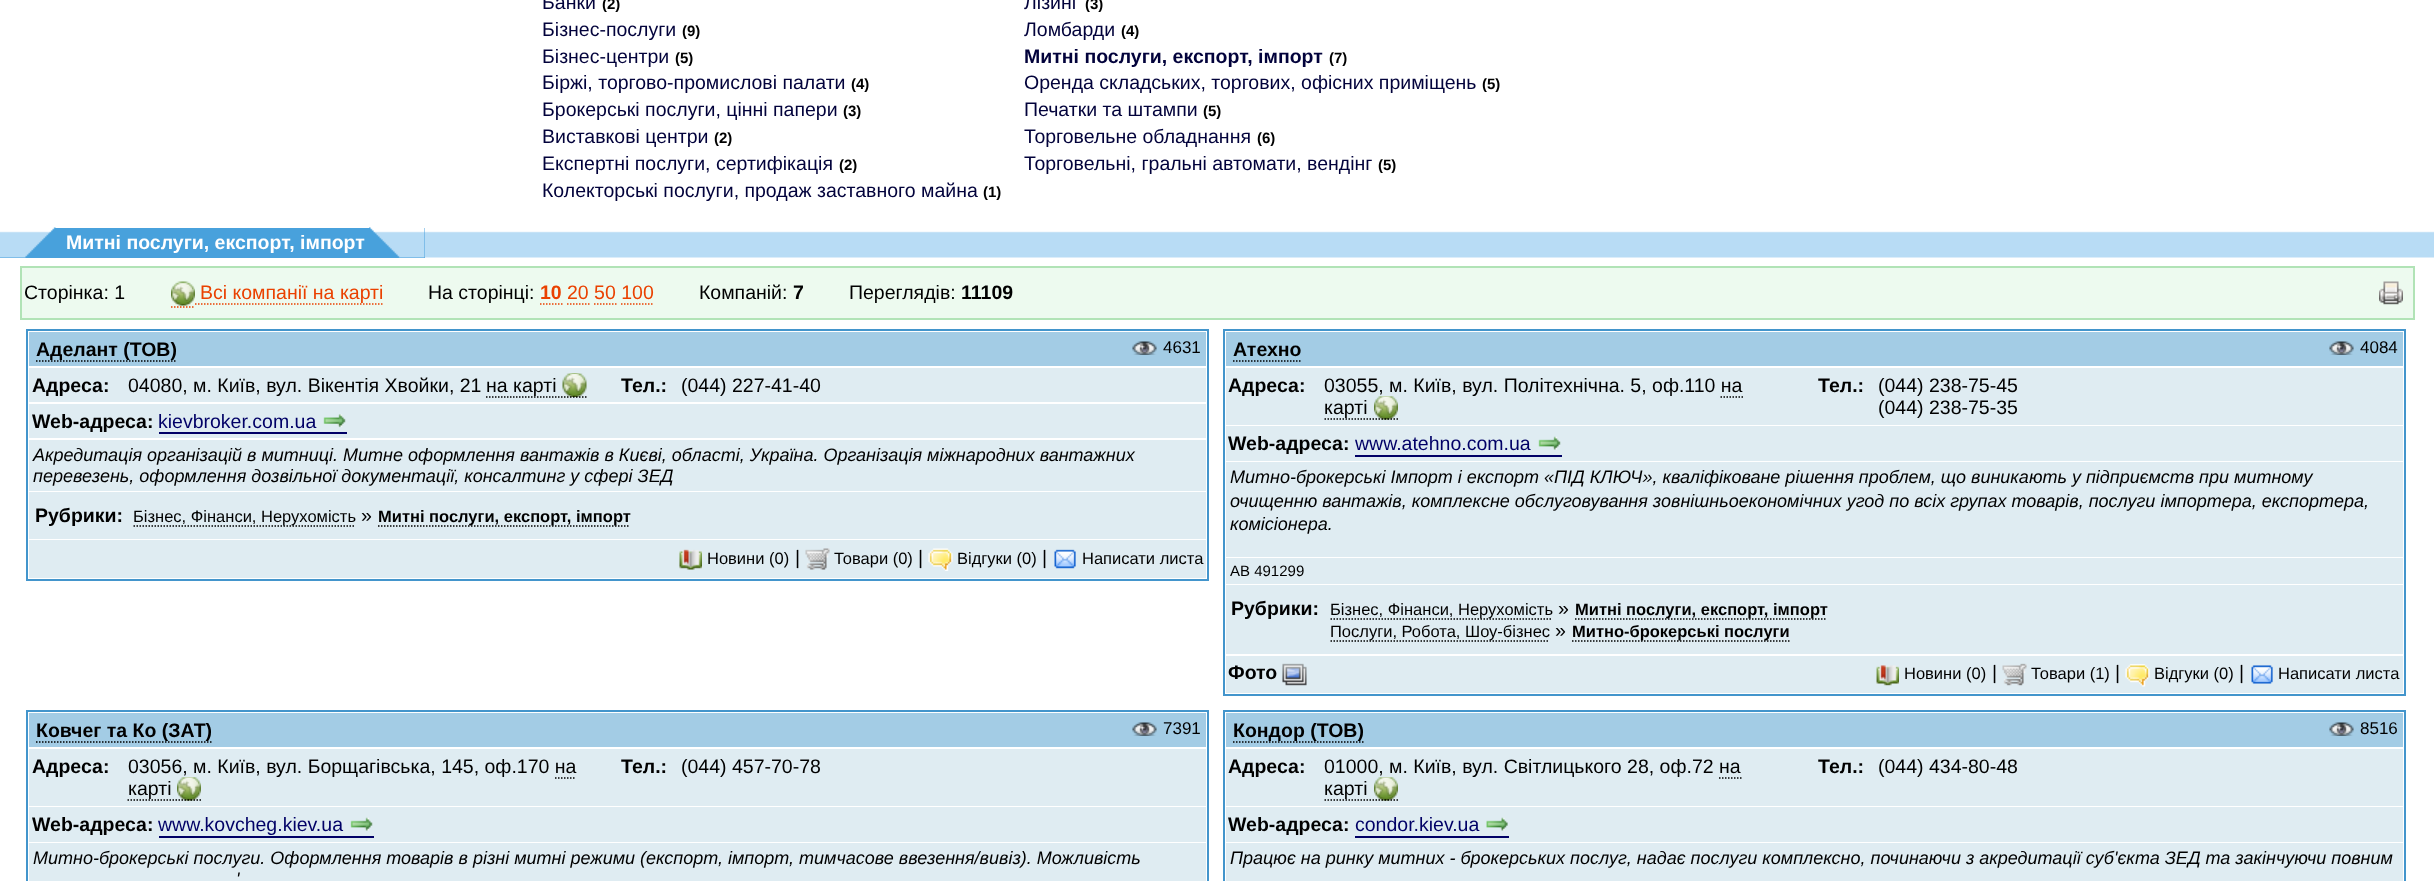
<!DOCTYPE html>
<meta charset="utf-8">
<style>body { margin: 0 } canvas { display: block }</style>
<canvas id="canvas" width="2434" height="881"></canvas>
<img id="img1" src="img_01.png" hidden>
<img id="img2" src="img_02.png" hidden>
<img id="img3" src="img_03.png" hidden>
<img id="img4" src="img_04.png" hidden>
<img id="img5" src="img_05.png" hidden>
<img id="img6" src="img_06.png" hidden>
<img id="img7" src="img_07.png" hidden>
<img id="img8" src="img_08.png" hidden>
<img id="img9" src="img_09.png" hidden>
<img id="img10" src="img_10.png" hidden>
<img id="img11" src="img_11.png" hidden>
<img id="img12" src="img_12.png" hidden>
<img id="img13" src="img_13.png" hidden>
<img id="img14" src="img_15.png" hidden>
<img id="img15" src="img_16.png" hidden>
<img id="img16" src="img_17.png" hidden>
<img id="img17" src="img_18.png" hidden>
<img id="img18" src="img_19.png" hidden>
<img id="img19" src="img_20.png" hidden>
<img id="img20" src="img_21.png" hidden>
<img id="img21" src="img_14.png" hidden>
<script>
window.onload = function () {
	const canvas = document.getElementById("canvas");
	const ctx = canvas.getContext("2d");
	ctx.miterLimit = 4;
	ctx.fontKerning = "normal";
	function txt(s, x, y) {
		ctx.fillText(s, x, y);
	}
	function fill(x, y, w, h) {
		ctx.fillRect(x, y, w, h);
	}
	function img(id, x, y, w, h) {
		ctx.drawImage(document.getElementById(id), x, y, w, h);
	}

	ctx.fillStyle = "#FFFFFF";
	fill(0, 0, 2434, 881);
	img("img1", 425, 231, 2009, 27);
	ctx.fillStyle = "#48A1DC";
	fill(0, 228, 425, 30);
	img("img2", 0, 227, 56, 31);
	img("img3", 369, 227, 56, 31);
	ctx.fillStyle = "#EDFAEF";
	ctx.beginPath();
	ctx.rect(21, 267, 2393, 52);
	ctx.fill();
	ctx.strokeStyle = "#B1E3B6";
	ctx.lineWidth = 2;
	ctx.stroke();
	img("img4", 171, 281, 24, 25);
	ctx.beginPath();
	ctx.moveTo(171, 307);
	ctx.lineTo(195, 307);
	ctx.strokeStyle = "#EA4100";
	ctx.lineWidth = 1.5;
	ctx.setLineDash([1.5, 1.5]);
	ctx.stroke();
	ctx.beginPath();
	ctx.moveTo(195, 304);
	ctx.lineTo(382.5, 304);
	ctx.stroke();
	ctx.beginPath();
	ctx.moveTo(540, 304);
	ctx.lineTo(562.5, 304);
	ctx.stroke();
	ctx.beginPath();
	ctx.moveTo(567, 304);
	ctx.lineTo(589.5, 304);
	ctx.stroke();
	ctx.beginPath();
	ctx.moveTo(594, 304);
	ctx.lineTo(616.5, 304);
	ctx.moveTo(621, 304);
	ctx.lineTo(654, 304);
	ctx.stroke();
	img("img5", 2379, 281, 24, 24);
	ctx.strokeStyle = "#4395CC";
	ctx.lineWidth = 2;
	ctx.setLineDash([]);
	ctx.strokeRect(27, 330, 1181, 250);
	ctx.fillStyle = "#A3CCE5";
	fill(29, 332, 1177, 34);
	ctx.beginPath();
	ctx.moveTo(36, 361);
	ctx.lineTo(177, 361);
	ctx.strokeStyle = "#000000";
	ctx.lineWidth = 1.5;
	ctx.setLineDash([1.5, 1.5]);
	ctx.stroke();
	img("img6", 1132, 341, 25, 14);
	ctx.fillStyle = "#DFECF2";
	fill(29, 368, 1177, 34);
	img("img7", 562, 373, 25, 24);
	ctx.beginPath();
	ctx.moveTo(486, 397);
	ctx.lineTo(586.5, 397);
	ctx.stroke();
	fill(29, 404, 1177, 34);
	ctx.fillStyle = "#000066";
	fill(159, 432, 188, 2);
	img("img8", 323, 414, 23, 14);
	ctx.fillStyle = "#DFECF2";
	fill(29, 440, 1177, 51);
	fill(29, 492, 1177, 47);
	ctx.beginPath();
	ctx.moveTo(133.5, 526);
	ctx.lineTo(355.5, 526);
	ctx.stroke();
	ctx.beginPath();
	ctx.moveTo(378, 526);
	ctx.lineTo(630, 526);
	ctx.stroke();
	fill(29, 540, 1177, 38);
	img("img9", 679, 549, 23, 21);
	img("img10", 805, 548, 25, 22);
	img("img11", 928, 548, 25, 23);
	img("img12", 1054, 549, 22, 20);
	ctx.strokeStyle = "#4395CC";
	ctx.lineWidth = 2;
	ctx.setLineDash([]);
	ctx.strokeRect(1224, 330, 1181, 365);
	ctx.fillStyle = "#A3CCE5";
	fill(1226, 332, 1177, 34);
	ctx.beginPath();
	ctx.moveTo(1233, 361);
	ctx.lineTo(1302, 361);
	ctx.strokeStyle = "#000000";
	ctx.lineWidth = 1.5;
	ctx.setLineDash([1.5, 1.5]);
	ctx.stroke();
	img("img13", 2329, 341, 25, 14);
	ctx.fillStyle = "#DFECF2";
	fill(1226, 368, 1177, 57);
	ctx.beginPath();
	ctx.moveTo(1720.5, 397);
	ctx.lineTo(1743, 397);
	ctx.stroke();
	fill(1226, 426, 1177, 35);
	ctx.fillStyle = "#000066";
	fill(1355, 455, 207, 2);
	img("img14", 1538, 436, 23, 14);
	ctx.fillStyle = "#DFECF2";
	fill(1226, 462, 1177, 95);
	fill(1226, 558, 1177, 26);
	fill(1226, 585, 1177, 69);
	ctx.beginPath();
	ctx.moveTo(1330.5, 619);
	ctx.lineTo(1552.5, 619);
	ctx.stroke();
	ctx.beginPath();
	ctx.moveTo(1575, 619);
	ctx.lineTo(1827, 619);
	ctx.stroke();
	ctx.beginPath();
	ctx.moveTo(1330.5, 641);
	ctx.lineTo(1549.5, 641);
	ctx.stroke();
	ctx.beginPath();
	ctx.moveTo(1572, 641);
	ctx.lineTo(1789.5, 641);
	ctx.stroke();
	fill(1226, 656, 1177, 37);
	img("img15", 1282, 663, 25, 23);
	img("img16", 1876, 665, 23, 21);
	img("img17", 2002, 663, 25, 23);
	img("img18", 2125, 664, 25, 23);
	img("img19", 2251, 665, 22, 19);
	ctx.strokeStyle = "#4395CC";
	ctx.lineWidth = 2;
	ctx.setLineDash([]);
	ctx.strokeRect(27, 711, 1181, 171);
	ctx.fillStyle = "#A3CCE5";
	fill(29, 713, 1177, 34);
	ctx.beginPath();
	ctx.moveTo(36, 742);
	ctx.lineTo(211.5, 742);
	ctx.strokeStyle = "#000000";
	ctx.lineWidth = 1.5;
	ctx.setLineDash([1.5, 1.5]);
	ctx.stroke();
	img("img6", 1132, 722, 25, 14);
	ctx.fillStyle = "#DFECF2";
	fill(29, 749, 1177, 57);
	ctx.beginPath();
	ctx.moveTo(555, 778);
	ctx.lineTo(576, 778);
	ctx.stroke();
	fill(29, 807, 1177, 35);
	ctx.fillStyle = "#000066";
	fill(159, 836, 215, 2);
	img("img14", 350, 817, 23, 14);
	ctx.fillStyle = "#DFECF2";
	fill(29, 843, 1177, 38);
	ctx.strokeStyle = "#4395CC";
	ctx.lineWidth = 2;
	ctx.setLineDash([]);
	ctx.strokeRect(1224, 711, 1181, 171);
	ctx.fillStyle = "#A3CCE5";
	fill(1226, 713, 1177, 34);
	ctx.beginPath();
	ctx.moveTo(1233, 742);
	ctx.lineTo(1363.5, 742);
	ctx.strokeStyle = "#000000";
	ctx.lineWidth = 1.5;
	ctx.setLineDash([1.5, 1.5]);
	ctx.stroke();
	img("img13", 2329, 722, 25, 14);
	ctx.fillStyle = "#DFECF2";
	fill(1226, 749, 1177, 57);
	ctx.beginPath();
	ctx.moveTo(1719, 778);
	ctx.lineTo(1741.5, 778);
	ctx.stroke();
	fill(1226, 807, 1177, 35);
	ctx.fillStyle = "#000066";
	fill(1355, 836, 154, 2);
	img("img20", 1486, 817, 22, 14);
	ctx.fillStyle = "#DFECF2";
	fill(1226, 843, 1177, 38);
	ctx.font = "19.5px Liberation Sans";
	ctx.fillStyle = "#02023B";
	txt("Банки", 542, 9);
	ctx.font = "bold 15px Liberation Sans";
	ctx.fillStyle = "#000000";
	txt("(2)", 602, 9);
	ctx.font = "19.5px Liberation Sans";
	ctx.fillStyle = "#02023B";
	txt("Бізнес-послуги", 542, 36);
	ctx.font = "bold 15px Liberation Sans";
	ctx.fillStyle = "#000000";
	txt("(9)", 682, 36);
	ctx.font = "19.5px Liberation Sans";
	ctx.fillStyle = "#02023B";
	txt("Бізнес-центри", 542, 63);
	ctx.font = "bold 15px Liberation Sans";
	ctx.fillStyle = "#000000";
	txt("(5)", 675, 63);
	ctx.font = "19.5px Liberation Sans";
	ctx.fillStyle = "#02023B";
	txt("Біржі, торгово-промислові палати", 542, 89);
	ctx.font = "bold 15px Liberation Sans";
	ctx.fillStyle = "#000000";
	txt("(4)", 851, 89);
	ctx.font = "19.5px Liberation Sans";
	ctx.fillStyle = "#02023B";
	txt("Брокерські послуги, цінні папери", 542, 116);
	ctx.font = "bold 15px Liberation Sans";
	ctx.fillStyle = "#000000";
	txt("(3)", 843, 116);
	ctx.font = "19.5px Liberation Sans";
	ctx.fillStyle = "#02023B";
	txt("Виставкові центри", 542, 143);
	ctx.font = "bold 15px Liberation Sans";
	ctx.fillStyle = "#000000";
	txt("(2)", 714, 143);
	ctx.font = "19.5px Liberation Sans";
	ctx.fillStyle = "#02023B";
	txt("Експертні послуги, сертифікація", 542, 170);
	ctx.font = "bold 15px Liberation Sans";
	ctx.fillStyle = "#000000";
	txt("(2)", 839, 170);
	ctx.font = "19.5px Liberation Sans";
	ctx.fillStyle = "#02023B";
	txt("Колекторські послуги, продаж заставного майна", 542, 197);
	ctx.font = "bold 15px Liberation Sans";
	ctx.fillStyle = "#000000";
	txt("(1)", 983, 197);
	ctx.font = "19.5px Liberation Sans";
	ctx.fillStyle = "#02023B";
	txt("Лізинг", 1024, 9);
	ctx.font = "bold 15px Liberation Sans";
	ctx.fillStyle = "#000000";
	txt("(3)", 1085, 9);
	ctx.font = "19.5px Liberation Sans";
	ctx.fillStyle = "#02023B";
	txt("Ломбарди", 1024, 36);
	ctx.font = "bold 15px Liberation Sans";
	ctx.fillStyle = "#000000";
	txt("(4)", 1121, 36);
	ctx.font = "bold 19.5px Liberation Sans";
	ctx.fillStyle = "#02023B";
	txt("Митні послуги, експорт, імпорт", 1024, 63);
	ctx.font = "bold 15px Liberation Sans";
	ctx.fillStyle = "#000000";
	txt("(7)", 1329, 63);
	ctx.font = "19.5px Liberation Sans";
	ctx.fillStyle = "#02023B";
	txt("Оренда складських, торгових, офісних приміщень", 1024, 89);
	ctx.font = "bold 15px Liberation Sans";
	ctx.fillStyle = "#000000";
	txt("(5)", 1482, 89);
	ctx.font = "19.5px Liberation Sans";
	ctx.fillStyle = "#02023B";
	txt("Печатки та штампи", 1024, 116);
	ctx.font = "bold 15px Liberation Sans";
	ctx.fillStyle = "#000000";
	txt("(5)", 1203, 116);
	ctx.font = "19.5px Liberation Sans";
	ctx.fillStyle = "#02023B";
	txt("Торговельне обладнання", 1024, 143);
	ctx.font = "bold 15px Liberation Sans";
	ctx.fillStyle = "#000000";
	txt("(6)", 1257, 143);
	ctx.font = "19.5px Liberation Sans";
	ctx.fillStyle = "#02023B";
	txt("Торговельні, гральні автомати, вендінг", 1024, 170);
	ctx.font = "bold 15px Liberation Sans";
	ctx.fillStyle = "#000000";
	txt("(5)", 1378, 170);
	ctx.font = "bold 19.5px Liberation Sans";
	ctx.fillStyle = "#FFFFFF";
	txt("Митні послуги, експорт, імпорт", 66, 249);
	ctx.font = "19.5px Liberation Sans";
	ctx.fillStyle = "#000000";
	txt("Сторінка: 1", 24, 299);
	ctx.fillStyle = "#EA4100";
	txt("Всі компанії на карті", 200, 299);
	ctx.fillStyle = "#000000";
	txt("На сторінці:", 428, 299);
	ctx.font = "bold 19.5px Liberation Sans";
	ctx.fillStyle = "#EA4100";
	txt("10", 540, 299);
	ctx.font = "19.5px Liberation Sans";
	txt("20 50 100", 567, 299);
	ctx.fillStyle = "#000000";
	txt("Компаній:", 699, 299);
	ctx.font = "bold 19.5px Liberation Sans";
	txt("7", 793, 299);
	ctx.font = "19.5px Liberation Sans";
	txt("Переглядів:", 849, 299);
	ctx.font = "bold 19.5px Liberation Sans";
	txt("11109", 961, 299);
	txt("Аделант (ТОВ)", 36, 356);
	ctx.font = "17px Liberation Sans";
	txt("4631", 1163, 353);
	ctx.font = "bold 19.5px Liberation Sans";
	txt("Адреса:", 32, 392);
	ctx.font = "19.5px Liberation Sans";
	txt("04080, м. Київ, вул. Вікентія Хвойки, 21", 128, 392);
	txt("на карті", 486, 392);
	ctx.font = "bold 19.5px Liberation Sans";
	txt("Тел.:", 621, 392);
	ctx.font = "19.5px Liberation Sans";
	txt("(044) 227-41-40", 681, 392);
	ctx.font = "bold 19.5px Liberation Sans";
	txt("Web-адреса:", 32, 428);
	ctx.font = "19.5px Liberation Sans";
	ctx.fillStyle = "#000066";
	txt("kievbroker.com.ua", 158, 428);
	ctx.font = "italic 18px Liberation Sans";
	ctx.fillStyle = "#000000";
	txt("Акредитація організацій в митниці. Митне оформлення вантажів в Києві, області, Україна. Організація міжнародних вантажних", 33, 461);
	txt("перевезень, оформлення дозвільної документації, консалтинг у сфері ЗЕД", 33, 482);
	ctx.font = "bold 19.5px Liberation Sans";
	txt("Рубрики:", 35, 522);
	ctx.font = "16.5px Liberation Sans";
	txt("Бізнес, Фінанси, Нерухомість", 133, 522);
	ctx.font = "19.5px Liberation Sans";
	txt("»", 361, 522);
	ctx.font = "bold 16.5px Liberation Sans";
	txt("Митні послуги, експорт, імпорт", 378, 522);
	ctx.font = "16.5px Liberation Sans";
	txt("Новини (0)", 707, 564);
	ctx.font = "19.5px Liberation Sans";
	txt("|", 795, 564);
	ctx.font = "16.5px Liberation Sans";
	txt("Товари (0)", 834, 564);
	ctx.font = "19.5px Liberation Sans";
	txt("|", 918, 564);
	ctx.font = "16.5px Liberation Sans";
	txt("Відгуки (0)", 957, 564);
	ctx.font = "19.5px Liberation Sans";
	txt("|", 1042, 564);
	ctx.font = "16.5px Liberation Sans";
	txt("Написати листа", 1082, 564);
	ctx.font = "bold 19.5px Liberation Sans";
	txt("Атехно", 1233, 356);
	ctx.font = "17px Liberation Sans";
	txt("4084", 2360, 353);
	ctx.font = "bold 19.5px Liberation Sans";
	txt("Адреса:", 1228, 392);
	ctx.font = "19.5px Liberation Sans";
	txt("03055, м. Київ, вул. Політехнічна. 5, оф.110 на", 1324, 392);
	img("img21", 1374, 396, 24, 24);
	ctx.beginPath();
	ctx.moveTo(1324.5, 419);
	ctx.lineTo(1398, 419);
	ctx.stroke();
	txt("карті", 1324, 414);
	ctx.font = "bold 19.5px Liberation Sans";
	txt("Тел.:", 1818, 392);
	ctx.font = "19.5px Liberation Sans";
	txt("(044) 238-75-45", 1878, 392);
	txt("(044) 238-75-35", 1878, 414);
	ctx.font = "bold 19.5px Liberation Sans";
	txt("Web-адреса:", 1228, 450);
	ctx.font = "19.5px Liberation Sans";
	ctx.fillStyle = "#000066";
	txt("www.atehno.com.ua", 1355, 450);
	ctx.font = "italic 18px Liberation Sans";
	ctx.fillStyle = "#000000";
	txt("Митно-брокерські Імпорт і експорт «ПІД КЛЮЧ», кваліфіковане рішення проблем, що виникають у підприємств при митному", 1230, 483);
	txt("очищенню вантажів, комплексне обслуговування зовнішньоекономічних угод по всіх групах товарів, послуги імпортера, експортера,", 1230, 507);
	txt("комісіонера.", 1230, 530);
	ctx.font = "15px Liberation Sans";
	txt("АВ 491299", 1230, 576);
	ctx.font = "bold 19.5px Liberation Sans";
	txt("Рубрики:", 1231, 615);
	ctx.font = "16.5px Liberation Sans";
	txt("Бізнес, Фінанси, Нерухомість", 1330, 615);
	ctx.font = "19.5px Liberation Sans";
	txt("»", 1558, 615);
	ctx.font = "bold 16.5px Liberation Sans";
	txt("Митні послуги, експорт, імпорт", 1575, 615);
	ctx.font = "16.5px Liberation Sans";
	txt("Послуги, Робота, Шоу-бізнес", 1330, 637);
	ctx.font = "19.5px Liberation Sans";
	txt("»", 1555, 637);
	ctx.font = "bold 16.5px Liberation Sans";
	txt("Митно-брокерські послуги", 1572, 637);
	ctx.font = "bold 19.5px Liberation Sans";
	txt("Фото", 1228, 679);
	ctx.font = "16.5px Liberation Sans";
	txt("Новини (0)", 1904, 679);
	ctx.font = "19.5px Liberation Sans";
	txt("|", 1992, 679);
	ctx.font = "16.5px Liberation Sans";
	txt("Товари (1)", 2031, 679);
	ctx.font = "19.5px Liberation Sans";
	txt("|", 2115, 679);
	ctx.font = "16.5px Liberation Sans";
	txt("Відгуки (0)", 2154, 679);
	ctx.font = "19.5px Liberation Sans";
	txt("|", 2239, 679);
	ctx.font = "16.5px Liberation Sans";
	txt("Написати листа", 2278, 679);
	ctx.font = "bold 19.5px Liberation Sans";
	txt("Ковчег та Ко (ЗАТ)", 36, 737);
	ctx.font = "17px Liberation Sans";
	txt("7391", 1163, 734);
	ctx.font = "bold 19.5px Liberation Sans";
	txt("Адреса:", 32, 773);
	ctx.font = "19.5px Liberation Sans";
	txt("03056, м. Київ, вул. Борщагівська, 145, оф.170 на", 128, 773);
	img("img21", 177, 777, 24, 24);
	ctx.beginPath();
	ctx.moveTo(127.5, 800);
	ctx.lineTo(201, 800);
	ctx.stroke();
	txt("карті", 128, 795);
	ctx.font = "bold 19.5px Liberation Sans";
	txt("Тел.:", 621, 773);
	ctx.font = "19.5px Liberation Sans";
	txt("(044) 457-70-78", 681, 773);
	ctx.font = "bold 19.5px Liberation Sans";
	txt("Web-адреса:", 32, 831);
	ctx.font = "19.5px Liberation Sans";
	ctx.fillStyle = "#000066";
	txt("www.kovcheg.kiev.ua", 158, 831);
	ctx.font = "italic 18px Liberation Sans";
	ctx.fillStyle = "#000000";
	txt("Митно-брокерські послуги. Оформлення товарів в різні митні режими (експорт, імпорт, тимчасове ввезення/вивіз). Можливість", 33, 864);
	txt("'", 236, 885);
	ctx.font = "bold 19.5px Liberation Sans";
	txt("Кондор (ТОВ)", 1233, 737);
	ctx.font = "17px Liberation Sans";
	txt("8516", 2360, 734);
	ctx.font = "bold 19.5px Liberation Sans";
	txt("Адреса:", 1228, 773);
	ctx.font = "19.5px Liberation Sans";
	txt("01000, м. Київ, вул. Світлицького 28, оф.72 на", 1324, 773);
	img("img21", 1374, 777, 24, 24);
	ctx.beginPath();
	ctx.moveTo(1324.5, 800);
	ctx.lineTo(1398, 800);
	ctx.stroke();
	txt("карті", 1324, 795);
	ctx.font = "bold 19.5px Liberation Sans";
	txt("Тел.:", 1818, 773);
	ctx.font = "19.5px Liberation Sans";
	txt("(044) 434-80-48", 1878, 773);
	ctx.font = "bold 19.5px Liberation Sans";
	txt("Web-адреса:", 1228, 831);
	ctx.font = "19.5px Liberation Sans";
	ctx.fillStyle = "#000066";
	txt("condor.kiev.ua", 1355, 831);
	ctx.font = "italic 18px Liberation Sans";
	ctx.fillStyle = "#000000";
	txt("Працює на ринку митних - брокерських послуг, надає послуги комплексно, починаючи з акредитації суб'єкта ЗЕД та закінчуючи повним", 1230, 864);
};
</script>
